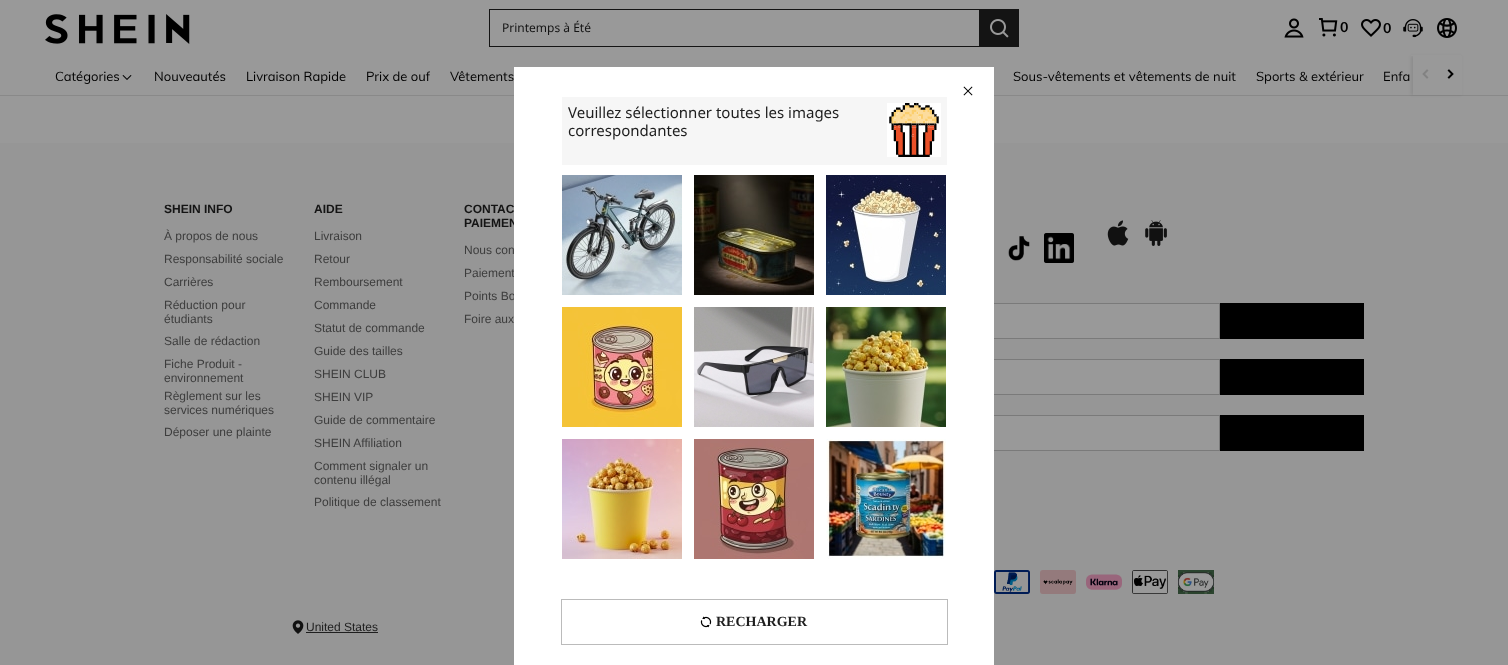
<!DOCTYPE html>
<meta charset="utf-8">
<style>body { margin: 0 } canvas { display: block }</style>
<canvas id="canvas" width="1508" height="665"></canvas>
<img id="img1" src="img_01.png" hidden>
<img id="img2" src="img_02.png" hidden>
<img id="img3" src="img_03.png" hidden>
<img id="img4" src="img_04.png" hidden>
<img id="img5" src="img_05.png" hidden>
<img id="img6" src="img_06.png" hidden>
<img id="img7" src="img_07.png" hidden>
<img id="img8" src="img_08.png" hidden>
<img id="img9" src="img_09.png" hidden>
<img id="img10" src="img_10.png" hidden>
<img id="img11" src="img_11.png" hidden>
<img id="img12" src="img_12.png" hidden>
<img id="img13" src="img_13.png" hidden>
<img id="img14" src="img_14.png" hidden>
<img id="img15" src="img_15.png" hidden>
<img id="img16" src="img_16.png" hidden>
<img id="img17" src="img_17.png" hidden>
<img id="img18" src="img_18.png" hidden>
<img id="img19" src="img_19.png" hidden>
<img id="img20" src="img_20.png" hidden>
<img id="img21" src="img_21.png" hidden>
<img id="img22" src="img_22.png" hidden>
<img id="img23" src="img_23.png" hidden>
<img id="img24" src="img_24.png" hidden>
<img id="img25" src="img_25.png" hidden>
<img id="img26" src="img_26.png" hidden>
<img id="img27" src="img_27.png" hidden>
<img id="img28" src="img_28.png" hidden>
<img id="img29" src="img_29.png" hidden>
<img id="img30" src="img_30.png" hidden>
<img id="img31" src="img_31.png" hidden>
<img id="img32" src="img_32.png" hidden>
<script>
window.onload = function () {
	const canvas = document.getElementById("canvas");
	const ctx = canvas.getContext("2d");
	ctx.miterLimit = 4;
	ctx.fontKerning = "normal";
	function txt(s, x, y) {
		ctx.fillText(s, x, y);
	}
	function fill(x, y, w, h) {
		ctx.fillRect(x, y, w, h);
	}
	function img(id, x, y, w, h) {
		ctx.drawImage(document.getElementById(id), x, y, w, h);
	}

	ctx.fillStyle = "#999999";
	fill(0, 0, 1508, 665);
	ctx.fillStyle = "#898989";
	fill(0, 95, 1508, 1);
	ctx.fillStyle = "rgba(0, 0, 0, 0.08)";
	ctx.filter = "blur(1.5px)";
	ctx.beginPath();
	ctx.rect(1411, 56, 50, 39);
	ctx.fill();
	ctx.filter = "none";
	ctx.fillStyle = "#999999";
	fill(1411, 55, 50, 1);
	img("img1", 45, 14, 145, 30);
	ctx.fillStyle = "#141414";
	fill(489, 9, 490, 1);
	fill(489, 46, 490, 1);
	fill(489, 9, 1, 38);
	fill(979, 9, 40, 38);
	img("img2", 990, 19, 19, 19);
	img("img3", 1284, 18, 20, 20);
	img("img4", 1319, 18, 19, 19);
	img("img5", 1361, 19, 20, 18);
	img("img6", 1403, 19, 20, 19);
	img("img7", 1437, 18, 20, 20);
	img("img8", 122, 75, 10, 5);
	ctx.fillStyle = "#999999";
	fill(1413, 56, 49, 39);
	img("img9", 1422, 69, 7, 10);
	img("img10", 1447, 69, 7, 10);
	ctx.fillStyle = "#969696";
	fill(0, 143, 1508, 522);
	img("img11", 1008, 236, 22, 25);
	img("img12", 1044, 233, 30, 30);
	img("img13", 1107, 220, 22, 26);
	img("img14", 1145, 220, 22, 26);
	ctx.fillStyle = "#999999";
	fill(994, 304, 225, 34);
	ctx.strokeStyle = "#7A7A7A";
	ctx.strokeRect(764.5, 303.5, 455, 35);
	ctx.fillStyle = "#000000";
	fill(1220, 303, 144, 36);
	ctx.fillStyle = "#999999";
	fill(994, 360, 225, 34);
	ctx.strokeRect(844.5, 359.5, 375, 35);
	ctx.fillStyle = "#000000";
	fill(1220, 359, 144, 36);
	ctx.fillStyle = "#999999";
	fill(994, 416, 225, 34);
	ctx.strokeRect(844.5, 415.5, 375, 35);
	ctx.fillStyle = "#000000";
	fill(1220, 415, 144, 36);
	img("img15", 994, 570, 36, 24);
	img("img16", 1040, 570, 36, 24);
	img("img17", 1086, 574, 36, 16);
	img("img18", 1132, 570, 36, 24);
	img("img19", 1178, 570, 36, 24);
	img("img20", 292, 620, 12, 14);
	ctx.fillStyle = "#1E1E1E";
	fill(306, 632, 72, 1);
	ctx.fillStyle = "rgba(0, 0, 0, 0.3)";
	ctx.filter = "blur(0.5px)";
	ctx.beginPath();
	ctx.rect(514, 67, 480, 532);
	ctx.fill();
	ctx.filter = "none";
	ctx.font = "12px Noto Sans";
	ctx.fillStyle = "#141414";
	txt("Printemps à Été", 502, 32);
	ctx.font = "bold 14px Muli";
	ctx.fillStyle = "#000000";
	txt("0", 1340, 32);
	txt("0", 1383, 33);
	ctx.font = "13px Muli";
	txt("Catégories", 55, 81);
	txt("Nouveautés", 154, 81);
	txt("Livraison Rapide", 246, 81);
	txt("Prix de ouf", 366, 81);
	txt("Vêtements", 450, 81);
	txt("Sous-vêtements et vêtements de nuit", 1013, 81);
	txt("Sports & extérieur", 1256, 81);
	txt("Enfa", 1383, 81);
	ctx.font = "bold 12px Liberation Sans";
	ctx.fillStyle = "#141414";
	txt("SHEIN INFO", 164, 213);
	ctx.font = "12px Liberation Sans";
	ctx.fillStyle = "#3D3D3D";
	txt("À propos de nous", 164, 240);
	txt("Responsabilité sociale", 164, 263);
	txt("Carrières", 164, 286);
	txt("Réduction pour", 164, 309);
	txt("étudiants", 164, 323);
	txt("Salle de rédaction", 164, 345);
	txt("Fiche Produit -", 164, 368);
	txt("environnement", 164, 382);
	txt("Règlement sur les", 164, 400);
	txt("services numériques", 164, 414);
	txt("Déposer une plainte", 164, 436);
	ctx.font = "bold 12px Liberation Sans";
	ctx.fillStyle = "#141414";
	txt("AIDE", 314, 213);
	ctx.font = "12px Liberation Sans";
	ctx.fillStyle = "#3D3D3D";
	txt("Livraison", 314, 240);
	txt("Retour", 314, 263);
	txt("Remboursement", 314, 286);
	txt("Commande", 314, 309);
	txt("Statut de commande", 314, 332);
	txt("Guide des tailles", 314, 355);
	txt("SHEIN CLUB", 314, 378);
	txt("SHEIN VIP", 314, 401);
	txt("Guide de commentaire", 314, 424);
	txt("SHEIN Affiliation", 314, 447);
	txt("Comment signaler un", 314, 470);
	txt("contenu illégal", 314, 484);
	txt("Politique de classement", 314, 506);
	ctx.font = "bold 12px Liberation Sans";
	ctx.fillStyle = "#141414";
	txt("CONTAC", 464, 213);
	txt("PAIEMEN", 464, 227);
	ctx.font = "12px Liberation Sans";
	ctx.fillStyle = "#3D3D3D";
	txt("Nous con", 464, 254);
	txt("Paiement", 464, 277);
	txt("Points Bo", 464, 300);
	txt("Foire aux", 464, 323);
	ctx.fillStyle = "#1E1E1E";
	txt("United States", 306, 631);
	ctx.fillStyle = "#FFFFFF";
	fill(514, 67, 480, 598);
	img("img21", 963, 86, 10, 10);
	ctx.fillStyle = "#F6F6F6";
	fill(562, 97, 385, 68);
	ctx.font = "15px Noto Sans";
	ctx.fillStyle = "#1E1E1E";
	txt("Veuillez sélectionner toutes les images", 568, 118);
	txt("correspondantes", 568, 136);
	ctx.fillStyle = "#FFFFFF";
	fill(887, 103, 54, 54);
	img("img22", 889, 103, 50, 54);
	img("img23", 562, 175, 120, 120);
	img("img24", 694, 175, 120, 120);
	img("img25", 826, 175, 120, 120);
	img("img26", 562, 307, 120, 120);
	img("img27", 694, 307, 120, 120);
	img("img28", 826, 307, 120, 120);
	img("img29", 562, 439, 120, 120);
	img("img30", 694, 439, 120, 120);
	img("img31", 826, 439, 120, 120);
	ctx.strokeStyle = "#BBBBBB";
	ctx.strokeRect(561.5, 599.5, 386, 45);
	img("img32", 700, 616, 12, 12);
	ctx.font = "bold 14px Liberation Serif";
	ctx.fillStyle = "#1E1E1E";
	txt("RECHARGER", 716, 626);
};
</script>
